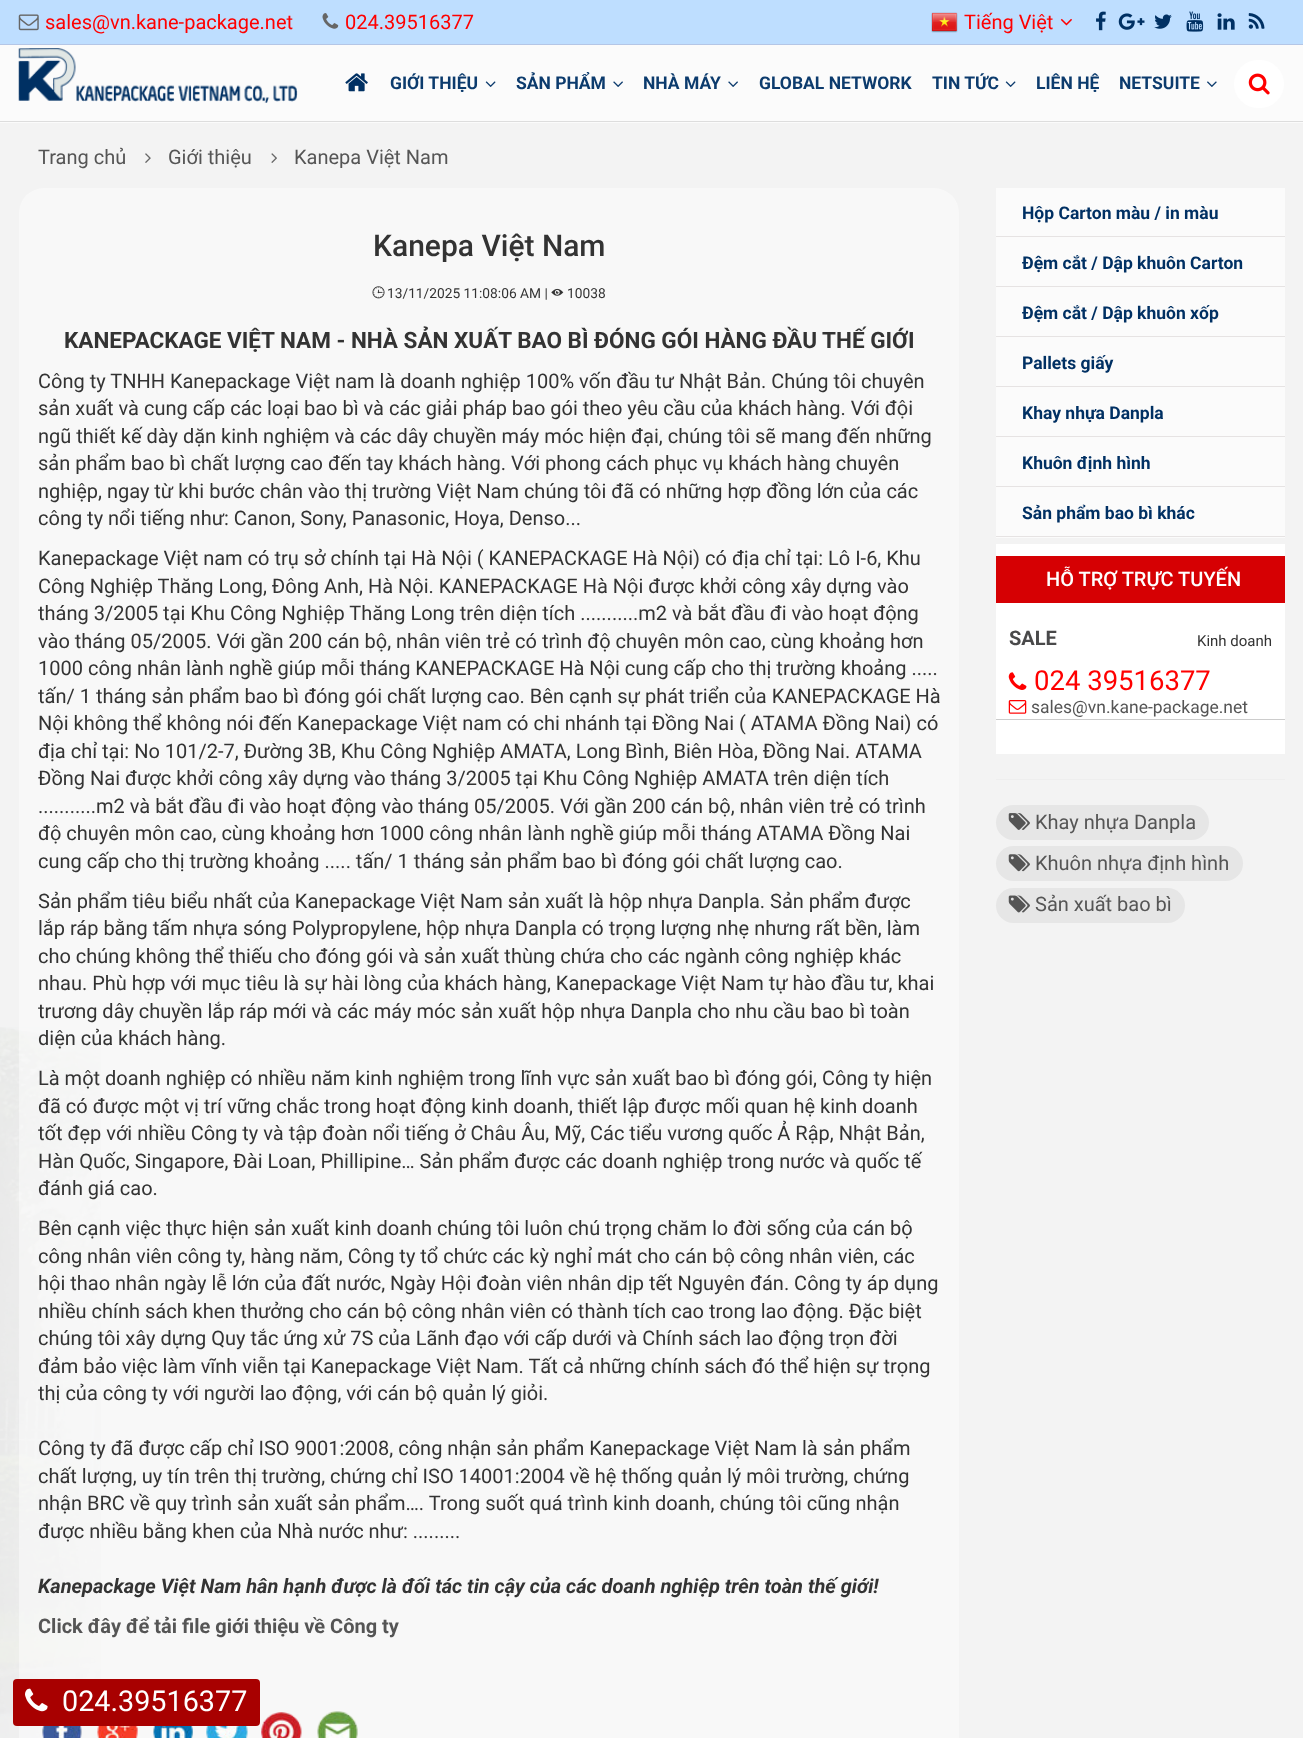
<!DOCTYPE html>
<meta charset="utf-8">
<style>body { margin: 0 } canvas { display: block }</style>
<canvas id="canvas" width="1303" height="1738"></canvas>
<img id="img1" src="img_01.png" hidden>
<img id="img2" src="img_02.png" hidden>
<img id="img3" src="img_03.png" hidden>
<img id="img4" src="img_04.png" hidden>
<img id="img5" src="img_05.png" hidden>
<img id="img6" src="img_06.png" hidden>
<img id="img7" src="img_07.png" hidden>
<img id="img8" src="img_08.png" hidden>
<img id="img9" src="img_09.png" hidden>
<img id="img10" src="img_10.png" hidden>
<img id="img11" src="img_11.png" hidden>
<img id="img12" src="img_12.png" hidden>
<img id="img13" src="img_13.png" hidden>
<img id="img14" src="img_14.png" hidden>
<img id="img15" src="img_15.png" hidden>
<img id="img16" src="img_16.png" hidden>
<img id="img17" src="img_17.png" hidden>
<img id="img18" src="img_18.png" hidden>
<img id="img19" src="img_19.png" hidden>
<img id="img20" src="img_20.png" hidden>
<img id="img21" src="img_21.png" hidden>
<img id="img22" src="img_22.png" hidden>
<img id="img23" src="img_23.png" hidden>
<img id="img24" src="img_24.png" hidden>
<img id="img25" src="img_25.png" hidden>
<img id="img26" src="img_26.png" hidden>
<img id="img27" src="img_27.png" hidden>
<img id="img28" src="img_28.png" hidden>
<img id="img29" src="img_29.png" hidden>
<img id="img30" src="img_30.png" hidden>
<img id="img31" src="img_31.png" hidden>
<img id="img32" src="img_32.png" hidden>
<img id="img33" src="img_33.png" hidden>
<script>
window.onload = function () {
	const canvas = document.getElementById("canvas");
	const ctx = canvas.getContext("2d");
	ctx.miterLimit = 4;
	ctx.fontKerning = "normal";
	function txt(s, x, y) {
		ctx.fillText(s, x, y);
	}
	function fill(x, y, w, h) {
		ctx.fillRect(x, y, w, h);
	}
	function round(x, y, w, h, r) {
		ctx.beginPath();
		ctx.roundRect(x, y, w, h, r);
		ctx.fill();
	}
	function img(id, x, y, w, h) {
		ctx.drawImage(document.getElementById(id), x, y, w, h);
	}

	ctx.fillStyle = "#F3F3F3";
	fill(0, 0, 1303, 1738);
	img("img1", 0, 1027, 101, 711);
	ctx.fillStyle = "#BEDEFF";
	fill(0, 0, 1303, 44);
	ctx.fillStyle = "#B4C6E6";
	fill(0, 44, 1303, 1);
	img("img2", 18, 14, 21, 17);
	img("img3", 322, 13, 17, 16);
	img("img4", 931, 12, 27, 21);
	img("img5", 1060, 18, 12, 8);
	img("img6", 1096, 11, 10, 20);
	img("img7", 1118, 13, 27, 17);
	img("img8", 1154, 14, 18, 15);
	img("img9", 1186, 11, 18, 21);
	img("img10", 1217, 13, 18, 17);
	img("img11", 1248, 13, 17, 16);
	ctx.fillStyle = "#FBFBFB";
	fill(0, 45, 1303, 78);
	ctx.fillStyle = "#DDDDDD";
	fill(0, 121, 1303, 1);
	img("img12", 18, 48, 280, 55);
	img("img13", 345, 73, 23, 19);
	img("img14", 485, 81, 11, 6);
	img("img15", 613, 81, 10, 6);
	img("img15", 728, 81, 10, 6);
	img("img14", 1005, 81, 11, 6);
	img("img16", 1207, 81, 10, 6);
	ctx.fillStyle = "#FFFFFF";
	round(1234, 60, 50, 48, 24);
	img("img17", 1248, 73, 22, 22);
	img("img18", 145, 153, 6, 10);
	img("img19", 271, 153, 6, 10);
	ctx.fillStyle = "rgba(255, 255, 255, 0.45)";
	round(19, 188, 940, 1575, 25);
	img("img20", 372, 286, 13, 13);
	img("img21", 551, 288, 13, 8);
	img("img22", 42, 1726, 40, 12);
	img("img23", 97, 1726, 41, 12);
	img("img24", 153, 1726, 40, 12);
	img("img25", 206, 1726, 42, 12);
	img("img26", 261, 1712, 41, 26);
	img("img27", 317, 1711, 41, 27);
	ctx.fillStyle = "#FBFBFB";
	fill(996, 188, 289, 350);
	ctx.fillStyle = "#E6E3E3";
	fill(996, 236, 289, 1);
	fill(996, 286, 289, 1);
	fill(996, 336, 289, 1);
	fill(996, 386, 289, 1);
	fill(996, 436, 289, 1);
	fill(996, 486, 289, 1);
	fill(996, 536, 289, 1);
	ctx.fillStyle = "#FFFFFF";
	fill(996, 544, 289, 210);
	ctx.fillStyle = "#D60003";
	fill(996, 556, 289, 47);
	ctx.fillStyle = "#CCCCCC";
	fill(996, 719, 289, 1);
	img("img28", 1008, 672, 19, 18);
	img("img29", 1008, 700, 19, 14);
	ctx.fillStyle = "#EEEEEE";
	fill(996, 779, 289, 1);
	ctx.fillStyle = "#E6E6E6";
	round(996, 805, 213, 35, 17.5);
	img("img30", 1008, 813, 22, 17);
	round(996, 846, 247, 35, 17.5);
	img("img31", 1008, 854, 22, 18);
	round(996, 888, 189, 35, 17.5);
	img("img32", 1008, 895, 22, 18);
	ctx.fillStyle = "#A80000";
	round(13, 1679, 247, 47, 4);
	img("img33", 25, 1688, 23, 24);
	ctx.font = "20px Roboto";
	ctx.fillStyle = "#FF0000";
	txt("sales@vn.kane-package.net", 45, 29);
	txt("024.39516377", 345, 29);
	txt("Tiếng Việt", 964, 29);
	ctx.font = "bold 17.5px Roboto";
	ctx.fillStyle = "#0C3B6D";
	txt("GIỚI THIỆU", 390, 89);
	txt("SẢN PHẨM", 516, 89);
	txt("NHÀ MÁY", 643, 89);
	txt("GLOBAL NETWORK", 759, 89);
	txt("TIN TỨC", 932, 89);
	txt("LIÊN HỆ", 1036, 89);
	txt("NETSUITE", 1119, 89);
	ctx.font = "20px Roboto";
	ctx.fillStyle = "#555555";
	txt("Trang chủ", 38, 164);
	txt("Giới thiệu", 168, 164);
	txt("Kanepa Việt Nam", 294, 164);
	ctx.font = "500 30px Roboto";
	ctx.fillStyle = "#333333";
	txt("Kanepa Việt Nam", 373, 256);
	ctx.font = "13.75px Roboto";
	txt("13/11/2025 11:08:06 AM |", 387, 298);
	txt("10038", 567, 298);
	ctx.font = "bold 22.5px Roboto";
	txt("KANEPACKAGE VIỆT NAM - NHÀ SẢN XUẤT BAO BÌ ĐÓNG GÓI HÀNG ĐẦU THẾ GIỚI", 64, 348);
	ctx.font = "20px Roboto";
	txt("Công ty TNHH Kanepackage Việt nam là doanh nghiệp 100% vốn đầu tư Nhật Bản. Chúng tôi chuyên", 38, 388);
	txt("sản xuất và cung cấp các loại bao bì và các giải pháp bao gói theo yêu cầu của khách hàng. Với đội", 38, 415);
	txt("ngũ thiết kế dày dặn kinh nghiệm và các dây chuyền máy móc hiện đại, chúng tôi sẽ mang đến những", 38, 443);
	txt("sản phẩm bao bì chất lượng cao đến tay khách hàng. Với phong cách phục vụ khách hàng chuyên", 38, 470);
	txt("nghiệp, ngay từ khi bước chân vào thị trường Việt Nam chúng tôi đã có những hợp đồng lớn của các", 38, 498);
	txt("công ty nổi tiếng như: Canon, Sony, Panasonic, Hoya, Denso...", 38, 525);
	txt("Kanepackage Việt nam có trụ sở chính tại Hà Nội ( KANEPACKAGE Hà Nội) có địa chỉ tại: Lô I-6, Khu", 38, 565);
	txt("Công Nghiệp Thăng Long, Đông Anh, Hà Nội. KANEPACKAGE Hà Nội được khởi công xây dựng vào", 38, 593);
	txt("tháng 3/2005 tại Khu Công Nghiệp Thăng Long trên diện tích ...........m2 và bắt đầu đi vào hoạt động", 38, 620);
	txt("vào tháng 05/2005. Với gần 200 cán bộ, nhân viên trẻ có trình độ chuyên môn cao, cùng khoảng hơn", 38, 648);
	txt("1000 công nhân lành nghề giúp mỗi tháng KANEPACKAGE Hà Nội cung cấp cho thị trường khoảng .....", 38, 675);
	txt("tấn/ 1 tháng sản phẩm bao bì đóng gói chất lượng cao. Bên cạnh sự phát triển của KANEPACKAGE Hà", 38, 703);
	txt("Nội không thể không nói đến Kanepackage Việt nam có chi nhánh tại Đồng Nai ( ATAMA Đồng Nai) có", 38, 730);
	txt("địa chỉ tại: No 101/2-7, Đường 3B, Khu Công Nghiệp AMATA, Long Bình, Biên Hòa, Đồng Nai. ATAMA", 38, 758);
	txt("Đồng Nai được khởi công xây dựng vào tháng 3/2005 tại Khu Công Nghiệp AMATA trên diện tích", 38, 785);
	txt("...........m2 và bắt đầu đi vào hoạt động vào tháng 05/2005. Với gần 200 cán bộ, nhân viên trẻ có trình", 38, 813);
	txt("độ chuyên môn cao, cùng khoảng hơn 1000 công nhân lành nghề giúp mỗi tháng ATAMA Đồng Nai", 38, 840);
	txt("cung cấp cho thị trường khoảng ..... tấn/ 1 tháng sản phẩm bao bì đóng gói chất lượng cao.", 38, 868);
	txt("Sản phẩm tiêu biểu nhất của Kanepackage Việt Nam sản xuất là hộp nhựa Danpla. Sản phẩm được", 38, 908);
	txt("lắp ráp bằng tấm nhựa sóng Polypropylene, hộp nhựa Danpla có trọng lượng nhẹ nhưng rất bền, làm", 38, 935);
	txt("cho chúng không thể thiếu cho đóng gói và sản xuất thùng chứa cho các ngành công nghiệp khác", 38, 963);
	txt("nhau. Phù hợp với mục tiêu là sự hài lòng của khách hàng, Kanepackage Việt Nam tự hào đầu tư, khai", 38, 990);
	txt("trương dây chuyền lắp ráp mới và các máy móc sản xuất hộp nhựa Danpla cho nhu cầu bao bì toàn", 38, 1018);
	txt("diện của khách hàng.", 38, 1045);
	txt("Là một doanh nghiệp có nhiều năm kinh nghiệm trong lĩnh vực sản xuất bao bì đóng gói, Công ty hiện", 38, 1085);
	txt("đã có được một vị trí vững chắc trong hoạt động kinh doanh, thiết lập được mối quan hệ kinh doanh", 38, 1113);
	txt("tốt đẹp với nhiều Công ty và tập đoàn nổi tiếng ở Châu Âu, Mỹ, Các tiểu vương quốc Ả Rập, Nhật Bản,", 38, 1140);
	txt("Hàn Quốc, Singapore, Đài Loan, Phillipine… Sản phẩm được các doanh nghiệp trong nước và quốc tế", 38, 1168);
	txt("đánh giá cao.", 38, 1195);
	txt("Bên cạnh việc thực hiện sản xuất kinh doanh chúng tôi luôn chú trọng chăm lo đời sống của cán bộ", 38, 1235);
	txt("công nhân viên công ty, hàng năm, Công ty tổ chức các kỳ nghỉ mát cho cán bộ công nhân viên, các", 38, 1263);
	txt("hội thao nhân ngày lễ lớn của đất nước, Ngày Hội đoàn viên nhân dịp tết Nguyên đán. Công ty áp dụng", 38, 1290);
	txt("nhiều chính sách khen thưởng cho cán bộ công nhân viên có thành tích cao trong lao động. Đặc biệt", 38, 1318);
	txt("chúng tôi xây dựng Quy tắc ứng xử 7S của Lãnh đạo với cấp dưới và Chính sách lao động trọn đời", 38, 1345);
	txt("đảm bảo việc làm vĩnh viễn tại Kanepackage Việt Nam. Tất cả những chính sách đó thể hiện sự trọng", 38, 1373);
	txt("thị của công ty với người lao động, với cán bộ quản lý giỏi.", 38, 1400);
	txt("Công ty đã được cấp chỉ ISO 9001:2008, công nhận sản phẩm Kanepackage Việt Nam là sản phẩm", 38, 1455);
	txt("chất lượng, uy tín trên thị trường, chứng chỉ ISO 14001:2004 về hệ thống quản lý môi trường, chứng", 38, 1483);
	txt("nhận BRC về quy trình sản xuất sản phẩm…. Trong suốt quá trình kinh doanh, chúng tôi cũng nhận", 38, 1510);
	txt("được nhiều bằng khen của Nhà nước như: .........", 38, 1538);
	ctx.font = "italic bold 20px Roboto";
	txt("Kanepackage Việt Nam hân hạnh được là đối tác tin cậy của các doanh nghiệp trên toàn thế giới!", 38, 1593);
	ctx.font = "bold 20px Roboto";
	ctx.fillStyle = "#555555";
	txt("Click đây để tải file giới thiệu về Công ty", 38, 1633);
	ctx.font = "bold 17.5px Roboto";
	ctx.fillStyle = "#003063";
	txt("Hộp Carton màu / in màu", 1022, 219);
	txt("Đệm cắt / Dập khuôn Carton", 1022, 269);
	txt("Đệm cắt / Dập khuôn xốp", 1022, 319);
	txt("Pallets giấy", 1022, 369);
	txt("Khay nhựa Danpla", 1022, 419);
	txt("Khuôn định hình", 1022, 469);
	txt("Sản phẩm bao bì khác", 1022, 519);
	ctx.font = "500 20px Roboto";
	ctx.fillStyle = "#FFFFFF";
	txt("HỖ TRỢ TRỰC TUYẾN", 1046, 586);
	ctx.font = "bold 20px Roboto";
	ctx.fillStyle = "#49494A";
	txt("SALE", 1009, 645);
	ctx.font = "15px Roboto";
	ctx.fillStyle = "#333333";
	txt("Kinh doanh", 1197, 646);
	ctx.font = "27.5px Roboto";
	ctx.fillStyle = "#FF0000";
	txt("024 39516377", 1034, 690);
	ctx.font = "17.5px Roboto";
	ctx.fillStyle = "#555555";
	txt("sales@vn.kane-package.net", 1031, 713);
	ctx.font = "20px Roboto";
	txt("Khay nhựa Danpla", 1035, 829);
	txt("Khuôn nhựa định hình", 1035, 870);
	txt("Sản xuất bao bì", 1035, 911);
	ctx.font = "28.75px Roboto";
	ctx.fillStyle = "#FFFFFF";
	txt("024.39516377", 62, 1711);
};
</script>
